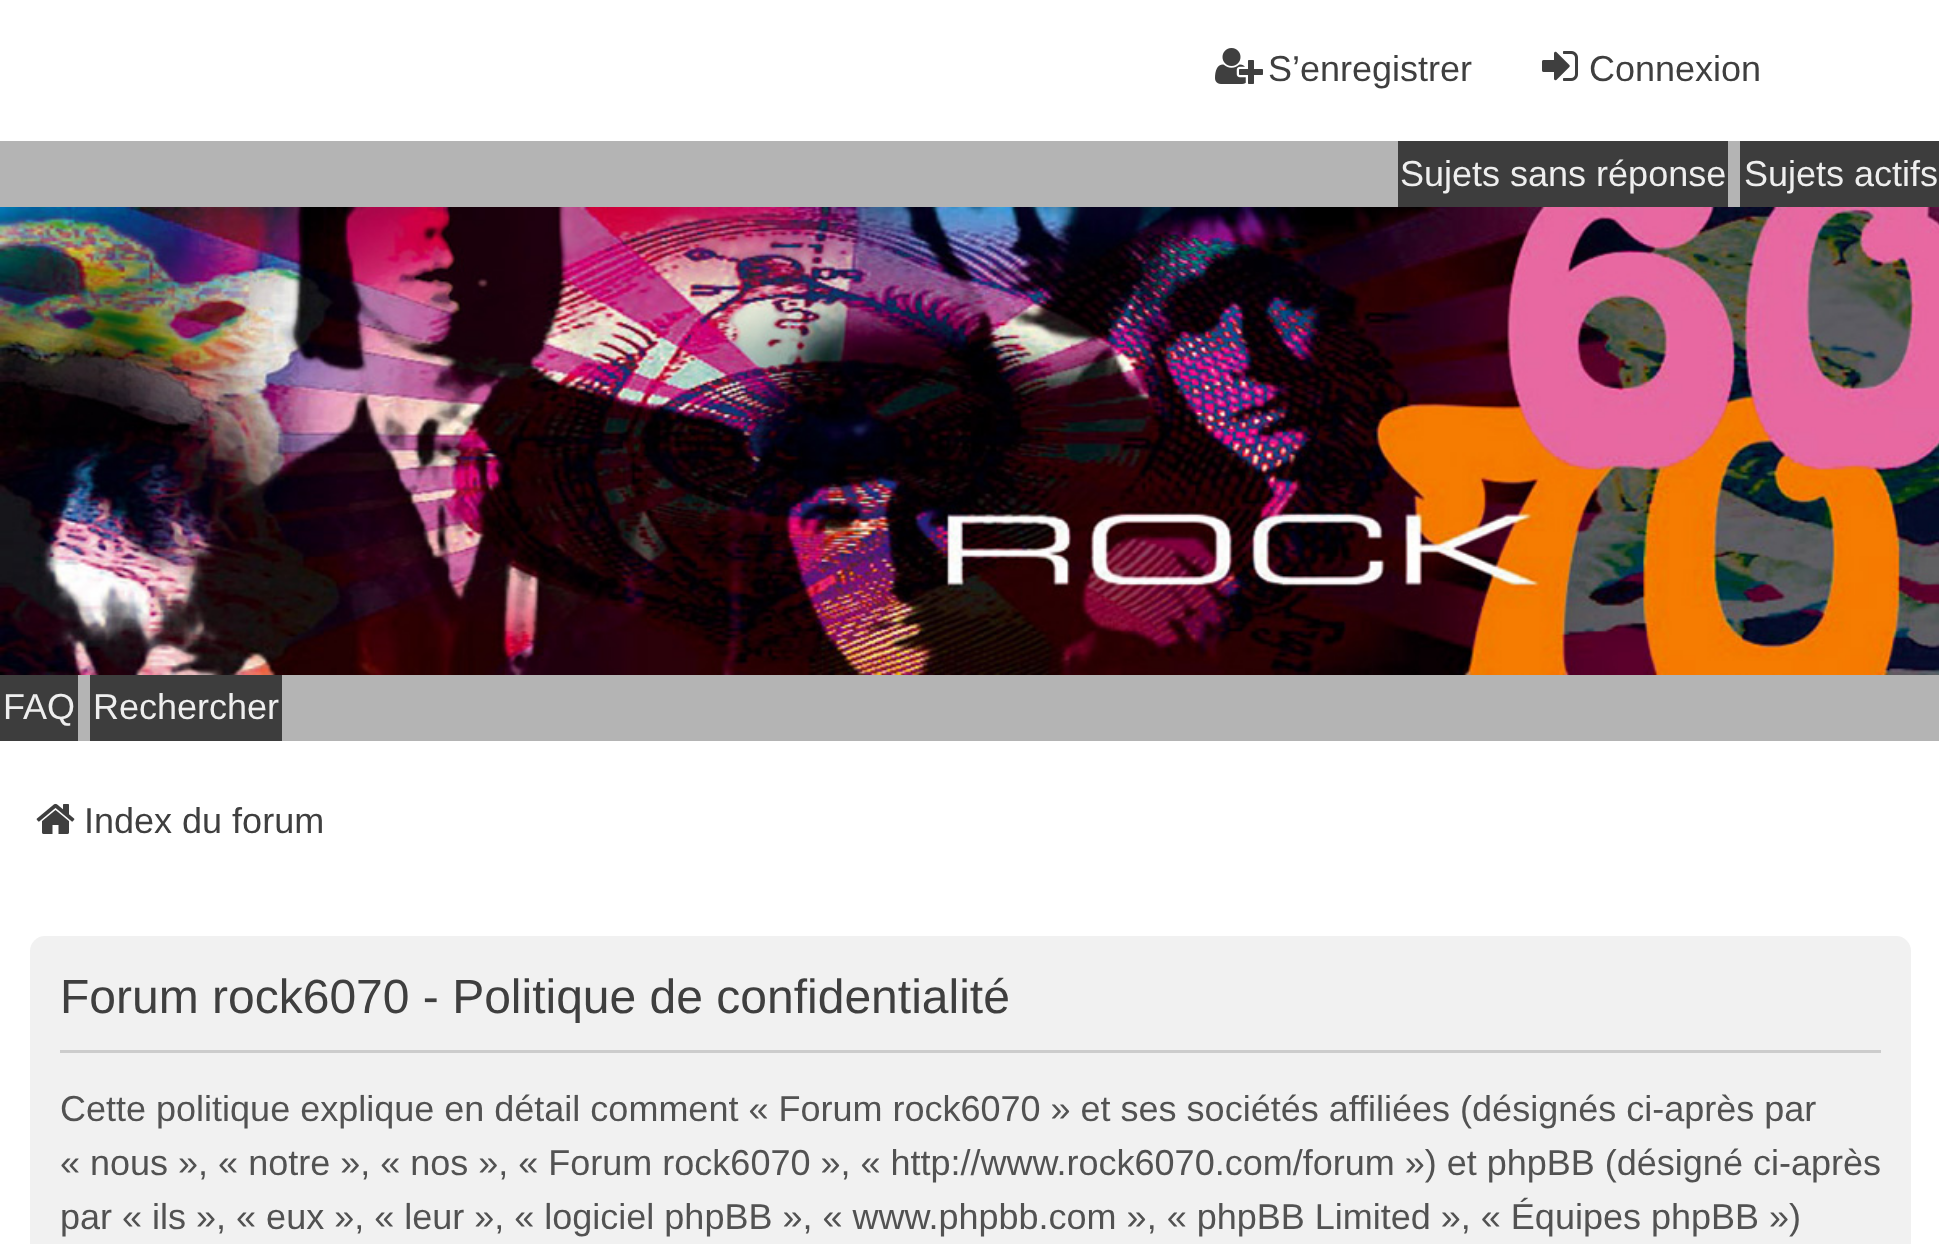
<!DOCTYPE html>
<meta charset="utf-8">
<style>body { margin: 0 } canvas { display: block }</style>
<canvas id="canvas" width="1939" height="1244"></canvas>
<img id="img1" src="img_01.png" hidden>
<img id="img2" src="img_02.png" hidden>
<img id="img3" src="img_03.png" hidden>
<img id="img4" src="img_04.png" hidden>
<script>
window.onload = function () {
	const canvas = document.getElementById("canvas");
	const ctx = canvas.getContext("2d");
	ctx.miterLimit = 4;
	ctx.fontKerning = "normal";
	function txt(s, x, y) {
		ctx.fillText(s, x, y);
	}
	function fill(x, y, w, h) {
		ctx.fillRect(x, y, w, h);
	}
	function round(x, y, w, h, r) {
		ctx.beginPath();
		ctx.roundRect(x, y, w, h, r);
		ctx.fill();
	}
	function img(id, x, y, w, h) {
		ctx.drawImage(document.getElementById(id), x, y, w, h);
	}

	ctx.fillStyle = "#FFFFFF";
	fill(0, 0, 1939, 1244);
	img("img1", 1215, 48, 48, 36);
	img("img2", 1542, 51, 36, 30);
	ctx.fillStyle = "#B4B4B4";
	fill(0, 141, 1939, 600);
	ctx.fillStyle = "#3D3D3D";
	fill(1398, 141, 330, 66);
	fill(1740, 141, 199, 66);
	img("img3", 0, 207, 1939, 468);
	fill(0, 675, 78, 66);
	fill(90, 675, 192, 66);
	img("img4", 36, 803, 39, 31);
	ctx.fillStyle = "#F1F1F1";
	round(30, 936, 1881, 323, 15);
	ctx.fillStyle = "#CCCCCC";
	fill(60, 1050, 1821, 3);
	ctx.font = "36px Liberation Sans";
	ctx.fillStyle = "#3F3F3F";
	txt("S’enregistrer", 1268, 81);
	txt("Connexion", 1589, 81);
	ctx.fillStyle = "#EEEEEE";
	txt("Sujets sans réponse", 1400, 186);
	txt("Sujets actifs", 1744, 186);
	txt("FAQ", 3, 719);
	txt("Rechercher", 93, 719);
	ctx.fillStyle = "#3F3F3F";
	txt("Index du forum", 84, 833);
	ctx.font = "48px Liberation Sans";
	txt("Forum rock6070 - Politique de confidentialité", 60, 1013);
	ctx.font = "36px Liberation Sans";
	ctx.fillStyle = "#525252";
	txt("Cette politique explique en détail comment « Forum rock6070 » et ses sociétés affiliées (désignés ci-après par", 60, 1121);
	txt("« nous », « notre », « nos », « Forum rock6070 », « http://www.rock6070.com/forum ») et phpBB (désigné ci-après", 60, 1175);
	txt("par « ils », « eux », « leur », « logiciel phpBB », « www.phpbb.com », « phpBB Limited », « Équipes phpBB »)", 60, 1229);
};
</script>
